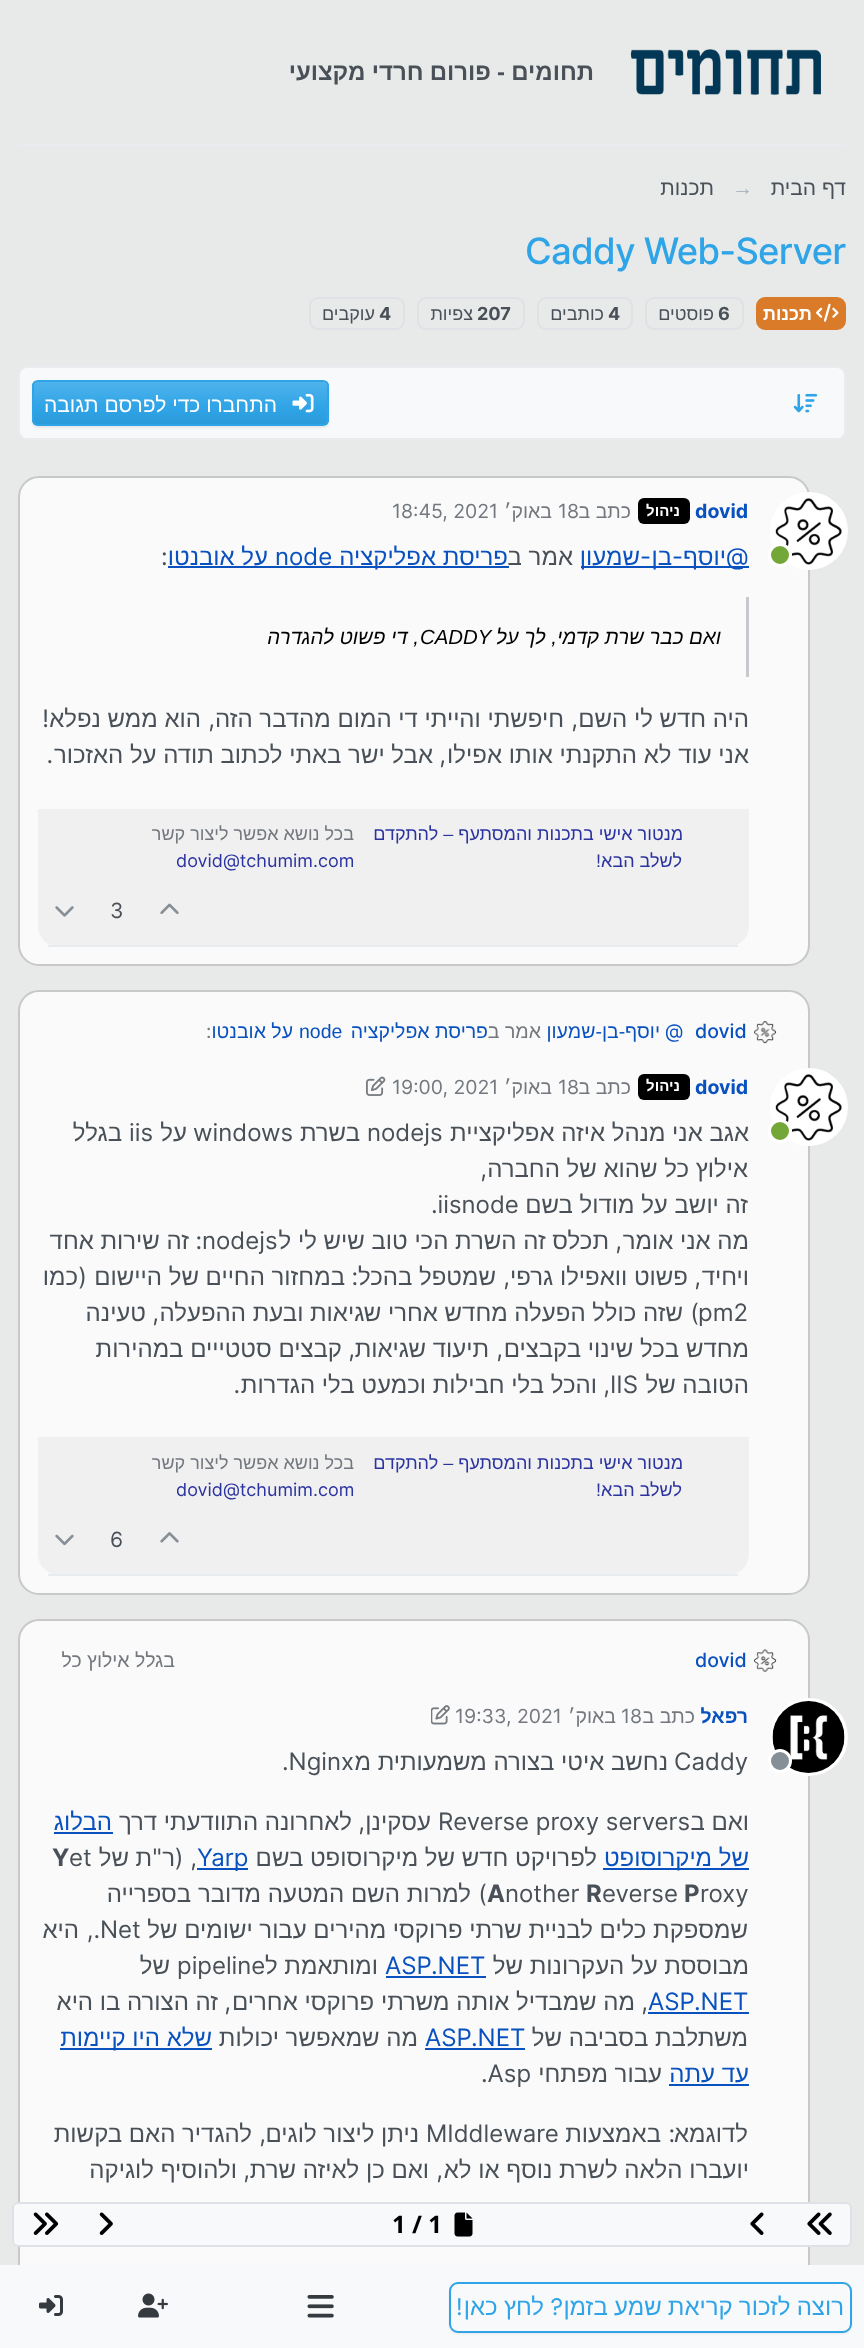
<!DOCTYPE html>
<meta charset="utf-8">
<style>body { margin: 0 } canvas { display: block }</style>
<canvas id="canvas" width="864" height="2348"></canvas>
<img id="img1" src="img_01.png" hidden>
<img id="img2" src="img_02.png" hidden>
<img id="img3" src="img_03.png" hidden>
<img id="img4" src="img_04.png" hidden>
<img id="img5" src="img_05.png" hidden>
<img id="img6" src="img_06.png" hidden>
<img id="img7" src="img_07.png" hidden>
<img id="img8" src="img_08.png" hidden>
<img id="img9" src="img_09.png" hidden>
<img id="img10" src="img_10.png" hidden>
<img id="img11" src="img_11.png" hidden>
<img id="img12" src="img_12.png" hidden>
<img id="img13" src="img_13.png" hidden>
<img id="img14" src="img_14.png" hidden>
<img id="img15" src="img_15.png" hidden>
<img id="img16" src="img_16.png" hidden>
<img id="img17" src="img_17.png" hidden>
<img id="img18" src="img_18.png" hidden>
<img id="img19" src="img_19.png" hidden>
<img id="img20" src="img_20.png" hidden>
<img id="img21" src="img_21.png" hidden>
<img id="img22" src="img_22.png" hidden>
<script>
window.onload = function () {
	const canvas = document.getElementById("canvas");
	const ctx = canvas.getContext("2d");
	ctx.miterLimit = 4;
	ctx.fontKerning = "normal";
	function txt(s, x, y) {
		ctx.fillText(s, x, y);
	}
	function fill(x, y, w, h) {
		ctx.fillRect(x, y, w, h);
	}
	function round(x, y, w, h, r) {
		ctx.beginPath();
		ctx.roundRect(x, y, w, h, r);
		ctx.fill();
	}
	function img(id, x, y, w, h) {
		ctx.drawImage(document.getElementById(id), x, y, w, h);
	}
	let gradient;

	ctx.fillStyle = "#E8EAEA";
	fill(0, 0, 864, 2348);
	ctx.fillStyle = "#E9ECEF";
	fill(18, 144, 828, 2);
	img("img1", 630, 49, 191, 46);
	ctx.fillStyle = "#D97B29";
	ctx.beginPath();
	ctx.roundRect(757, 298, 88, 31, 8);
	ctx.fill();
	ctx.strokeStyle = "#D97B29";
	ctx.lineWidth = 2;
	ctx.stroke();
	img("img2", 816, 303, 23, 19);
	ctx.beginPath();
	ctx.roundRect(646, 298, 97, 31, 8);
	ctx.strokeStyle = "#DEE2E6";
	ctx.stroke();
	ctx.beginPath();
	ctx.roundRect(538, 298, 94, 31, 8);
	ctx.stroke();
	ctx.beginPath();
	ctx.roundRect(418, 298, 106, 31, 8);
	ctx.stroke();
	ctx.beginPath();
	ctx.roundRect(310, 298, 94, 31, 8);
	ctx.stroke();
	ctx.fillStyle = "#F8F9FA";
	ctx.beginPath();
	ctx.roundRect(19, 367, 826, 72, 8);
	ctx.fill();
	ctx.strokeStyle = "#E9ECEF";
	ctx.stroke();
	img("img3", 793, 393, 25, 20);
	ctx.fillStyle = "rgba(0, 0, 0, 0.07)";
	ctx.filter = "blur(1px)";
	ctx.beginPath();
	ctx.roundRect(32, 381, 297, 47, 6);
	ctx.fill();
	ctx.filter = "none";
	ctx.save();
	ctx.beginPath();
	ctx.roundRect(32, 380, 297, 46, 6);
	ctx.clip();
	gradient = ctx.createLinearGradient(180, 381, 180, 425);
	gradient.addColorStop(0, "#50B3EB");
	gradient.addColorStop(0.6, "#2FA4E7");
	gradient.addColorStop(1, "#2C9AD9");
	ctx.fillStyle = gradient;
	fill(32, 381, 297, 44);
	ctx.restore();
	ctx.fillStyle = "rgba(255, 255, 255, 0.15)";
	ctx.beginPath();
	ctx.moveTo(38, 382);
	ctx.lineTo(322, 382);
	ctx.bezierCurveTo(325, 382, 327, 385, 327, 387);
	ctx.lineTo(327, 386);
	ctx.bezierCurveTo(327, 383, 325, 381, 322, 381);
	ctx.lineTo(38, 381);
	ctx.bezierCurveTo(35, 381, 33, 383, 33, 386);
	ctx.lineTo(33, 387);
	ctx.bezierCurveTo(33, 385, 35, 382, 38, 382);
	ctx.closePath();
	ctx.fill();
	ctx.beginPath();
	ctx.roundRect(33, 381, 295, 44, 5);
	ctx.strokeStyle = "#2FA4E7";
	ctx.stroke();
	img("img4", 292, 393, 22, 20);
	ctx.fillStyle = "#FAFAFA";
	ctx.beginPath();
	ctx.roundRect(19, 477, 790, 488, 20);
	ctx.fill();
	ctx.strokeStyle = "#C8C8C8";
	ctx.stroke();
	ctx.fillStyle = "#FFFFFF";
	ctx.beginPath();
	ctx.arc(809, 531, 37.5, 0, Math.PI * 2);
	ctx.fill();
	ctx.strokeStyle = "#FFFFFF";
	ctx.lineWidth = 3;
	ctx.stroke();
	img("img5", 775, 498, 67, 67);
	ctx.fillStyle = "#73A839";
	ctx.beginPath();
	ctx.arc(780, 555, 10.5, 0, Math.PI * 2);
	ctx.fill();
	ctx.stroke();
	ctx.fillStyle = "#000000";
	round(638, 498, 52, 26, 6);
	ctx.fillStyle = "#0951BE";
	fill(581, 566, 168, 2);
	fill(168, 566, 341, 2);
	ctx.fillStyle = "#C7C9CC";
	fill(746, 597, 3, 80);
	ctx.fillStyle = "#F0F0F1";
	ctx.beginPath();
	ctx.roundRect(38, 809, 711, 138, [0, 0, 21, 21]);
	ctx.fill();
	ctx.fillStyle = "#E9ECEF";
	fill(48, 945, 690, 2);
	img("img6", 160, 903, 19, 11);
	img("img7", 55, 906, 19, 11);
	ctx.fillStyle = "#FAFAFA";
	ctx.beginPath();
	ctx.roundRect(19, 991, 790, 603, 20);
	ctx.fill();
	ctx.strokeStyle = "#C8C8C8";
	ctx.lineWidth = 2;
	ctx.stroke();
	img("img8", 754, 1021, 23, 23);
	ctx.fillStyle = "#FFFFFF";
	ctx.beginPath();
	ctx.arc(809, 1107, 37.5, 0, Math.PI * 2);
	ctx.fill();
	ctx.strokeStyle = "#FFFFFF";
	ctx.lineWidth = 3;
	ctx.stroke();
	img("img5", 775, 1074, 67, 67);
	ctx.fillStyle = "#73A839";
	ctx.beginPath();
	ctx.arc(780, 1131, 10.5, 0, Math.PI * 2);
	ctx.fill();
	ctx.stroke();
	ctx.fillStyle = "#000000";
	round(638, 1074, 52, 26, 6);
	img("img9", 366, 1076, 20, 20);
	ctx.fillStyle = "#F0F0F1";
	ctx.beginPath();
	ctx.roundRect(38, 1437, 711, 138, [0, 0, 21, 21]);
	ctx.fill();
	ctx.fillStyle = "#E9ECEF";
	fill(48, 1574, 690, 2);
	img("img10", 160, 1532, 19, 11);
	img("img11", 55, 1534, 19, 12);
	ctx.fillStyle = "#FAFAFA";
	ctx.beginPath();
	ctx.roundRect(19, 1620, 790, 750, 20);
	ctx.fill();
	ctx.strokeStyle = "#C8C8C8";
	ctx.lineWidth = 2;
	ctx.stroke();
	img("img12", 754, 1649, 23, 23);
	ctx.fillStyle = "#FFFFFF";
	ctx.beginPath();
	ctx.arc(809, 1737, 37.5, 0, Math.PI * 2);
	ctx.fill();
	ctx.strokeStyle = "#FFFFFF";
	ctx.lineWidth = 3;
	ctx.stroke();
	img("img13", 772, 1701, 73, 72);
	ctx.fillStyle = "#868E96";
	ctx.beginPath();
	ctx.arc(780, 1761, 10.5, 0, Math.PI * 2);
	ctx.fill();
	ctx.stroke();
	img("img14", 431, 1705, 19, 20);
	ctx.fillStyle = "#0951BE";
	fill(54, 1832, 59, 2);
	fill(603, 1868, 146, 2);
	fill(197, 1868, 51, 2);
	fill(386, 1976, 100, 2);
	fill(648, 2012, 101, 2);
	fill(425, 2048, 100, 2);
	fill(60, 2048, 152, 2);
	fill(669, 2084, 80, 2);
	ctx.fillStyle = "#F8F9FA";
	ctx.beginPath();
	ctx.roundRect(13, 2203, 838, 43, 5);
	ctx.fill();
	ctx.strokeStyle = "#DEE2E6";
	ctx.lineWidth = 2;
	ctx.stroke();
	img("img15", 807, 2212, 25, 23);
	img("img16", 750, 2212, 14, 23);
	img("img17", 454, 2212, 19, 25);
	img("img18", 99, 2212, 14, 23);
	img("img19", 33, 2212, 26, 23);
	fill(0, 2265, 864, 83);
	ctx.fillStyle = "rgba(0, 0, 0, 0.07)";
	ctx.filter = "blur(1px)";
	ctx.beginPath();
	ctx.roundRect(449, 2283, 403, 51, 9);
	ctx.fill();
	ctx.filter = "none";
	ctx.fillStyle = "#F8F9FA";
	ctx.beginPath();
	ctx.roundRect(450, 2283, 401, 49, 8);
	ctx.fill();
	ctx.strokeStyle = "#2FA4E7";
	ctx.stroke();
	img("img20", 307, 2295, 27, 23);
	img("img21", 138, 2293, 30, 25);
	img("img22", 39, 2295, 24, 21);
	ctx.wordSpacing = "-0.5px";
	ctx.direction = "rtl";
	ctx.font = "bold 24px Liberation Sans";
	ctx.fillStyle = "#495057";
	txt("תחומים - פורום חרדי מקצועי", 594, 80);
	ctx.wordSpacing = "0px";
	ctx.font = "21px Liberation Sans";
	txt("דף הבית", 846, 195);
	ctx.direction = "ltr";
	ctx.fillStyle = "#ADB5BD";
	txt("→", 732, 195);
	ctx.direction = "rtl";
	ctx.fillStyle = "#495057";
	txt("תכנות", 714, 195);
	ctx.letterSpacing = "-0.75px";
	ctx.direction = "ltr";
	ctx.font = "500 36.4px Inter";
	ctx.fillStyle = "#2FA4E7";
	txt("Caddy Web-Server", 525, 264);
	ctx.letterSpacing = "0px";
	ctx.direction = "rtl";
	ctx.font = "bold 18px Liberation Sans";
	ctx.fillStyle = "#FFFFFF";
	txt("תכנות", 812, 320);
	ctx.direction = "ltr";
	ctx.font = "bold 18px Inter";
	ctx.fillStyle = "#495057";
	txt("6", 718, 320);
	ctx.direction = "rtl";
	ctx.font = "18px Liberation Sans";
	txt("פוסטים", 714, 320);
	ctx.direction = "ltr";
	ctx.font = "bold 18px Inter";
	txt("4", 608, 320);
	ctx.direction = "rtl";
	ctx.font = "18px Liberation Sans";
	txt("כותבים", 604, 320);
	ctx.direction = "ltr";
	ctx.font = "bold 18px Inter";
	txt("207", 477, 320);
	ctx.direction = "rtl";
	ctx.font = "18px Liberation Sans";
	txt("צפיות", 473, 320);
	ctx.direction = "ltr";
	ctx.font = "bold 18px Inter";
	txt("4", 379, 320);
	ctx.direction = "rtl";
	ctx.font = "18px Liberation Sans";
	txt("עוקבים", 375, 320);
	ctx.font = "21px Liberation Sans";
	ctx.fillStyle = "#FFFFFF";
	txt("התחברו כדי לפרסם תגובה", 277, 412);
	ctx.direction = "ltr";
	ctx.font = "bold 19.5px Inter";
	ctx.fillStyle = "#0951BE";
	txt("dovid", 695, 518);
	ctx.direction = "rtl";
	ctx.font = "bold 15px Liberation Sans";
	ctx.fillStyle = "#FFFFFF";
	txt("ניהול", 680, 516);
	ctx.font = "19.5px Liberation Sans";
	ctx.fillStyle = "#73787E";
	txt("כתב ב", 631, 518);
	ctx.direction = "ltr";
	ctx.font = "19.5px Inter";
	txt("18", 558, 518);
	ctx.direction = "rtl";
	ctx.font = "19.5px Liberation Sans";
	txt("באוק׳", 552, 518);
	ctx.direction = "ltr";
	ctx.font = "19.5px Inter";
	txt("18:45, 2021", 392, 518);
	ctx.font = "24px Inter";
	ctx.fillStyle = "#0951BE";
	txt("@", 726, 565);
	ctx.direction = "rtl";
	ctx.font = "24px Liberation Sans";
	txt("יוסף", 726, 565);
	ctx.font = "24px Inter";
	txt("-", 683, 565);
	ctx.font = "24px Liberation Sans";
	txt("בן", 672, 565);
	ctx.font = "24px Inter";
	txt("-", 651, 565);
	ctx.font = "24px Liberation Sans";
	txt("שמעון", 640, 565);
	ctx.fillStyle = "#495057";
	txt("אמר ב", 573, 565);
	ctx.fillStyle = "#0951BE";
	txt("פריסת אפליקציה", 508, 565);
	ctx.direction = "ltr";
	ctx.font = "24px Inter";
	txt("node", 275, 565);
	ctx.direction = "rtl";
	ctx.font = "24px Liberation Sans";
	txt("על אובנטו", 268, 565);
	ctx.direction = "ltr";
	ctx.font = "24px Inter";
	ctx.fillStyle = "#495057";
	txt(":", 161, 565);
	ctx.direction = "rtl";
	ctx.font = "italic 20.4px Liberation Sans";
	ctx.fillStyle = "#000000";
	txt("ואם כבר שרת קדמי, לך על", 721, 644);
	ctx.direction = "ltr";
	txt("CADDY", 420, 644);
	ctx.direction = "rtl";
	txt(", די פשוט להגדרה", 419, 644);
	ctx.font = "24px Liberation Sans";
	ctx.fillStyle = "#495057";
	txt("היה חדש לי השם", 749, 727);
	ctx.font = "24px Inter";
	txt(",", 578, 727);
	ctx.font = "24px Liberation Sans";
	txt("חיפשתי והייתי די המום מהדבר הזה", 564, 727);
	ctx.font = "24px Inter";
	txt(",", 215, 727);
	ctx.font = "24px Liberation Sans";
	txt("הוא ממש נפלא", 201, 727);
	ctx.font = "24px Inter";
	txt("!", 49, 727);
	ctx.font = "24px Liberation Sans";
	txt("אני עוד לא התקנתי אותו אפילו", 749, 763);
	ctx.font = "24px Inter";
	txt(",", 446, 763);
	ctx.font = "24px Liberation Sans";
	txt("אבל ישר באתי לכתוב תודה על האזכור", 433, 763);
	ctx.font = "24px Inter";
	txt(".", 53, 763);
	ctx.font = "18px Liberation Sans";
	ctx.fillStyle = "#2B339F";
	txt("מנטור אישי בתכנות והמסתעף – להתקדם", 683, 840);
	txt("לשלב הבא!", 682, 867);
	ctx.fillStyle = "#73787E";
	txt("בכל נושא אפשר ליצור קשר", 354, 840);
	ctx.direction = "ltr";
	ctx.font = "18px Inter";
	ctx.fillStyle = "#2B339F";
	txt("dovid@tchumim.com", 176, 867);
	ctx.font = "21px Inter";
	ctx.fillStyle = "#495057";
	txt("3", 110, 918);
	ctx.font = "500 19.5px Inter";
	ctx.fillStyle = "#0951BE";
	txt("dovid", 695, 1038);
	ctx.font = "19.5px Inter";
	txt("@", 665, 1038);
	ctx.direction = "rtl";
	ctx.font = "19.5px Liberation Sans";
	txt("יוסף-בן-שמעון", 660, 1038);
	ctx.fillStyle = "#73787E";
	txt("אמר ב", 541, 1038);
	ctx.fillStyle = "#0951BE";
	txt("פריסת אפליקציה", 488, 1038);
	ctx.direction = "ltr";
	txt("node", 299, 1038);
	ctx.direction = "rtl";
	txt("על אובנטו", 293, 1038);
	ctx.direction = "ltr";
	ctx.font = "19.5px Inter";
	ctx.fillStyle = "#73787E";
	txt(":", 206, 1038);
	ctx.font = "bold 19.5px Inter";
	ctx.fillStyle = "#0951BE";
	txt("dovid", 695, 1094);
	ctx.direction = "rtl";
	ctx.font = "bold 15px Liberation Sans";
	ctx.fillStyle = "#FFFFFF";
	txt("ניהול", 680, 1091);
	ctx.font = "19.5px Liberation Sans";
	ctx.fillStyle = "#73787E";
	txt("כתב ב", 631, 1094);
	ctx.direction = "ltr";
	ctx.font = "19.5px Inter";
	txt("18", 558, 1094);
	ctx.direction = "rtl";
	ctx.font = "19.5px Liberation Sans";
	txt("באוק׳", 552, 1094);
	ctx.direction = "ltr";
	ctx.font = "19.5px Inter";
	txt("19:00, 2021", 392, 1094);
	ctx.direction = "rtl";
	ctx.font = "24px Liberation Sans";
	ctx.fillStyle = "#495057";
	txt("אגב אני מנהל איזה אפליקציית", 749, 1141);
	ctx.direction = "ltr";
	ctx.font = "24px Inter";
	txt("nodejs", 367, 1141);
	ctx.direction = "rtl";
	ctx.font = "24px Liberation Sans";
	txt("בשרת", 360, 1141);
	ctx.direction = "ltr";
	ctx.font = "24px Inter";
	txt("windows", 193, 1141);
	ctx.direction = "rtl";
	ctx.font = "24px Liberation Sans";
	txt("על", 187, 1141);
	ctx.direction = "ltr";
	ctx.font = "24px Inter";
	txt("iis", 129, 1141);
	ctx.direction = "rtl";
	ctx.font = "24px Liberation Sans";
	txt("בגלל", 122, 1141);
	txt("אילוץ כל שהוא של החברה", 748, 1177);
	ctx.font = "24px Inter";
	txt(",", 487, 1177);
	ctx.font = "24px Liberation Sans";
	txt("זה יושב על מודול בשם", 748, 1213);
	ctx.direction = "ltr";
	ctx.font = "24px Inter";
	txt(".iisnode", 431, 1213);
	ctx.direction = "rtl";
	ctx.font = "24px Liberation Sans";
	txt("מה אני אומר", 749, 1249);
	ctx.font = "24px Inter";
	txt(",", 622, 1249);
	ctx.font = "24px Liberation Sans";
	txt("תכלס זה השרת הכי טוב שיש לי ל", 609, 1249);
	ctx.direction = "ltr";
	ctx.font = "24px Inter";
	txt("nodejs", 202, 1249);
	ctx.direction = "rtl";
	txt(":", 202, 1249);
	ctx.font = "24px Liberation Sans";
	txt("זה שירות אחד", 189, 1249);
	txt("ויחיד", 749, 1285);
	ctx.font = "24px Inter";
	txt(",", 701, 1285);
	ctx.font = "24px Liberation Sans";
	txt("פשוט וואפילו גרפי", 688, 1285);
	ctx.font = "24px Inter";
	txt(",", 510, 1285);
	ctx.font = "24px Liberation Sans";
	txt("שמטפל בהכל", 496, 1285);
	ctx.font = "24px Inter";
	txt(":", 358, 1285);
	ctx.font = "24px Liberation Sans";
	txt("במחזור החיים של היישום", 345, 1285);
	ctx.font = "24px Inter";
	txt("(", 87, 1285);
	ctx.font = "24px Liberation Sans";
	txt("כמו", 78, 1285);
	ctx.direction = "ltr";
	ctx.font = "24px Inter";
	txt("pm2", 698, 1321);
	ctx.direction = "rtl";
	txt(")", 699, 1321);
	ctx.font = "24px Liberation Sans";
	txt("שזה כולל הפעלה מחדש אחרי שגיאות ובעת ההפעלה", 683, 1321);
	ctx.font = "24px Inter";
	txt(",", 159, 1321);
	ctx.font = "24px Liberation Sans";
	txt("טעינה", 146, 1321);
	txt("מחדש בכל שינוי בקבצים", 749, 1357);
	ctx.font = "24px Inter";
	txt(",", 503, 1357);
	ctx.font = "24px Liberation Sans";
	txt("תיעוד שגיאות", 489, 1357);
	ctx.font = "24px Inter";
	txt(",", 355, 1357);
	ctx.font = "24px Liberation Sans";
	txt("קבצים סטטייים במהירות", 342, 1357);
	txt("הטובה של", 749, 1393);
	ctx.direction = "ltr";
	ctx.font = "24px Inter";
	txt("IIS", 610, 1393);
	ctx.direction = "rtl";
	txt(",", 610, 1393);
	ctx.font = "24px Liberation Sans";
	txt("והכל בלי חבילות וכמעט בלי הגדרות", 597, 1393);
	ctx.font = "24px Inter";
	txt(".", 240, 1393);
	ctx.font = "18px Liberation Sans";
	ctx.fillStyle = "#2B339F";
	txt("מנטור אישי בתכנות והמסתעף – להתקדם", 683, 1469);
	txt("לשלב הבא!", 682, 1496);
	ctx.fillStyle = "#73787E";
	txt("בכל נושא אפשר ליצור קשר", 354, 1469);
	ctx.direction = "ltr";
	ctx.font = "18px Inter";
	ctx.fillStyle = "#2B339F";
	txt("dovid@tchumim.com", 176, 1496);
	ctx.font = "21px Inter";
	ctx.fillStyle = "#495057";
	txt("6", 110, 1547);
	ctx.font = "500 19.5px Inter";
	ctx.fillStyle = "#0951BE";
	txt("dovid", 695, 1667);
	ctx.direction = "rtl";
	ctx.font = "19.5px Liberation Sans";
	ctx.fillStyle = "#73787E";
	txt("בגלל אילוץ כל", 175, 1667);
	ctx.font = "bold 19.5px Liberation Sans";
	ctx.fillStyle = "#0951BE";
	txt("רפאל", 748, 1723);
	ctx.font = "19.5px Liberation Sans";
	ctx.fillStyle = "#73787E";
	txt("כתב ב", 695, 1723);
	ctx.direction = "ltr";
	ctx.font = "19.5px Inter";
	txt("18", 621, 1723);
	ctx.direction = "rtl";
	ctx.font = "19.5px Liberation Sans";
	txt("באוק׳", 616, 1723);
	ctx.direction = "ltr";
	ctx.font = "19.5px Inter";
	txt("19:33, 2021", 455, 1723);
	ctx.font = "24px Inter";
	ctx.fillStyle = "#495057";
	txt("Caddy", 674, 1770);
	ctx.direction = "rtl";
	ctx.font = "24px Liberation Sans";
	txt("נחשב איטי בצורה משמעותית מ", 668, 1770);
	ctx.direction = "ltr";
	ctx.font = "24px Inter";
	txt(".Nginx", 282, 1770);
	ctx.direction = "rtl";
	ctx.font = "24px Liberation Sans";
	txt("ואם ב", 749, 1830);
	ctx.direction = "ltr";
	ctx.font = "24px Inter";
	txt("Reverse proxy servers", 438, 1830);
	ctx.direction = "rtl";
	ctx.font = "24px Liberation Sans";
	txt("עסקינן", 431, 1830);
	txt("לאחרונה התוודעתי דרך", 352, 1830);
	ctx.fillStyle = "#0951BE";
	txt("הבלוג", 112, 1830);
	ctx.font = "24px Inter";
	ctx.fillStyle = "#495057";
	txt(",", 365, 1830);
	ctx.font = "24px Liberation Sans";
	ctx.fillStyle = "#0951BE";
	txt("של מיקרוסופט", 749, 1866);
	ctx.fillStyle = "#495057";
	txt("לפרויקט חדש של מיקרוסופט בשם", 597, 1866);
	ctx.direction = "ltr";
	ctx.font = "24px Inter";
	ctx.fillStyle = "#0951BE";
	txt("Yarp", 197, 1866);
	ctx.direction = "rtl";
	ctx.fillStyle = "#495057";
	txt(", (", 197, 1866);
	ctx.font = "24px Liberation Sans";
	txt("ר", 175, 1866);
	ctx.font = "24px Inter";
	txt("\"", 162, 1866);
	ctx.font = "24px Liberation Sans";
	txt("ת", 152, 1866);
	txt("של", 129, 1866);
	ctx.direction = "ltr";
	ctx.font = "24px Inter";
	txt("et", 69, 1866);
	ctx.font = "bold 24px Inter";
	txt("Y", 52, 1866);
	ctx.font = "24px Inter";
	txt("roxy", 700, 1902);
	ctx.font = "bold 24px Inter";
	txt("P", 684, 1902);
	ctx.font = "24px Inter";
	txt("everse", 602, 1902);
	ctx.font = "bold 24px Inter";
	txt("R", 586, 1902);
	ctx.font = "24px Inter";
	txt("nother", 505, 1902);
	ctx.font = "bold 24px Inter";
	txt("A", 487, 1902);
	ctx.direction = "rtl";
	ctx.font = "24px Inter";
	txt(")", 487, 1902);
	ctx.font = "24px Liberation Sans";
	txt("למרות השם המטעה מדובר בספרייה", 471, 1902);
	txt("שמספקת כלים לבניית שרתי פרוקסי מהירים עבור ישומים של", 748, 1938);
	ctx.direction = "ltr";
	ctx.font = "24px Inter";
	txt("Net", 100, 1938);
	ctx.direction = "rtl";
	ctx.font = "24px Liberation Sans";
	txt("היא", 79, 1938);
	ctx.font = "24px Inter";
	txt(".,", 100, 1938);
	ctx.font = "24px Liberation Sans";
	txt("מבוססת על העקרונות של", 749, 1974);
	ctx.direction = "ltr";
	ctx.font = "24px Inter";
	ctx.fillStyle = "#0951BE";
	txt("ASP.NET", 385, 1974);
	ctx.direction = "rtl";
	ctx.font = "24px Liberation Sans";
	ctx.fillStyle = "#495057";
	txt("ומותאמת ל", 378, 1974);
	ctx.direction = "ltr";
	ctx.font = "24px Inter";
	txt("pipeline", 177, 1974);
	ctx.direction = "rtl";
	ctx.font = "24px Liberation Sans";
	txt("של", 170, 1974);
	ctx.direction = "ltr";
	ctx.font = "24px Inter";
	ctx.fillStyle = "#0951BE";
	txt("ASP.NET", 648, 2010);
	ctx.direction = "rtl";
	ctx.font = "24px Liberation Sans";
	ctx.fillStyle = "#495057";
	txt("מה שמבדיל אותה משרתי פרוקסי אחרים", 635, 2010);
	txt("זה הצורה בו היא", 218, 2010);
	ctx.font = "24px Inter";
	txt(",", 648, 2010);
	txt(",", 231, 2010);
	ctx.font = "24px Liberation Sans";
	txt("משתלבת בסביבה של", 748, 2046);
	ctx.direction = "ltr";
	ctx.font = "24px Inter";
	ctx.fillStyle = "#0951BE";
	txt("ASP.NET", 425, 2046);
	ctx.direction = "rtl";
	ctx.font = "24px Liberation Sans";
	ctx.fillStyle = "#495057";
	txt("מה שמאפשר יכולות", 418, 2046);
	ctx.fillStyle = "#0951BE";
	txt("שלא היו קיימות", 212, 2046);
	txt("עד עתה", 749, 2082);
	ctx.fillStyle = "#495057";
	txt("עבור מפתחי", 662, 2082);
	ctx.direction = "ltr";
	ctx.font = "24px Inter";
	txt(".Asp", 481, 2082);
	ctx.direction = "rtl";
	ctx.font = "24px Liberation Sans";
	txt("לדוגמא", 748, 2142);
	ctx.font = "24px Inter";
	txt(":", 675, 2142);
	ctx.font = "24px Liberation Sans";
	txt("באמצעות", 661, 2142);
	ctx.direction = "ltr";
	ctx.font = "24px Inter";
	txt("MIddleware", 426, 2142);
	ctx.direction = "rtl";
	ctx.font = "24px Liberation Sans";
	txt("ניתן ליצור לוגים", 419, 2142);
	ctx.font = "24px Inter";
	txt(",", 266, 2142);
	ctx.font = "24px Liberation Sans";
	txt("להגדיר האם בקשות", 252, 2142);
	txt("יועברו הלאה לשרת נוסף או לא", 749, 2178);
	ctx.font = "24px Inter";
	txt(",", 443, 2178);
	ctx.font = "24px Liberation Sans";
	txt("ואם כן לאיזה שרת", 429, 2178);
	ctx.font = "24px Inter";
	txt(",", 250, 2178);
	ctx.font = "24px Liberation Sans";
	txt("ולהוסיף לוגיקה", 237, 2178);
	ctx.direction = "ltr";
	ctx.font = "bold 24px Noto Sans";
	ctx.fillStyle = "#000000";
	txt("1 / 1", 392, 2233);
	ctx.wordSpacing = "-0.5px";
	ctx.direction = "rtl";
	ctx.font = "24px Liberation Sans";
	ctx.fillStyle = "#2FA4E7";
	txt("רוצה לזכור קריאת שמע בזמן", 844, 2315);
	ctx.wordSpacing = "0px";
	ctx.font = "24px Poppins";
	txt("?", 563, 2315);
	ctx.wordSpacing = "-0.5px";
	ctx.font = "24px Liberation Sans";
	txt("לחץ כאן", 544, 2315);
	ctx.wordSpacing = "0px";
	ctx.font = "24px Poppins";
	txt("!", 463, 2315);
};
</script>
